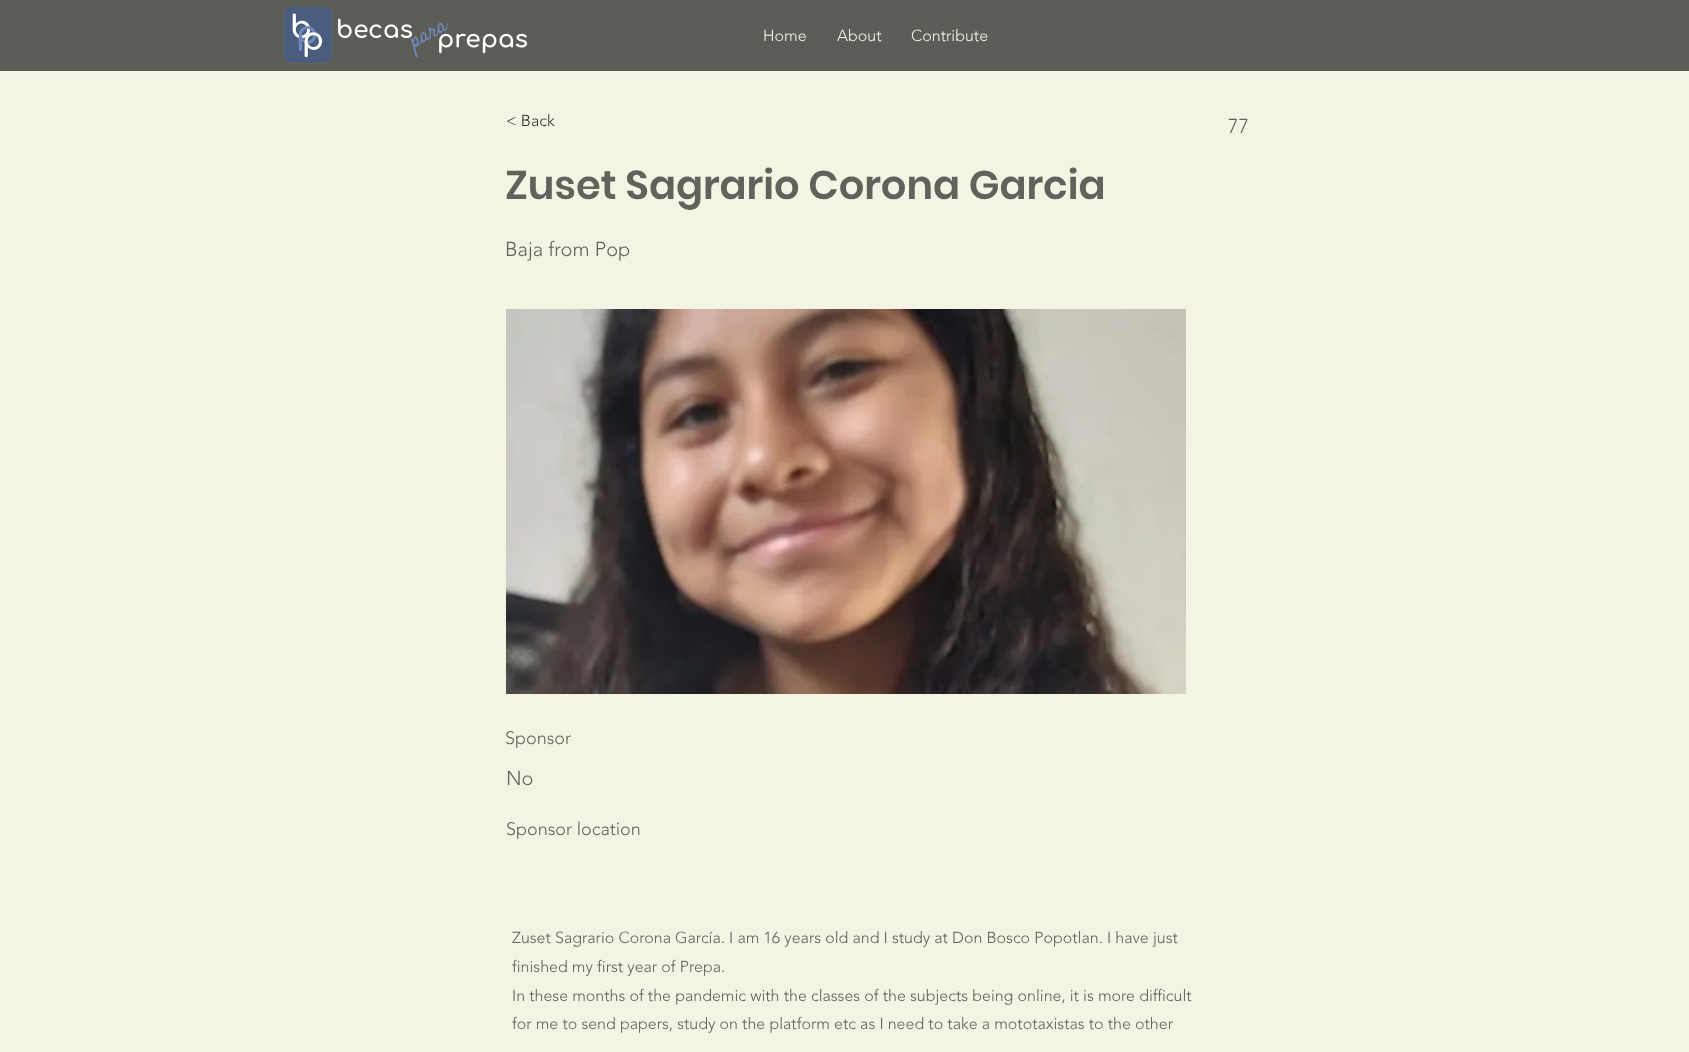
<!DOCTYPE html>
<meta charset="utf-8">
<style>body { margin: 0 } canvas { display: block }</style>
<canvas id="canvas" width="1689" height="1052"></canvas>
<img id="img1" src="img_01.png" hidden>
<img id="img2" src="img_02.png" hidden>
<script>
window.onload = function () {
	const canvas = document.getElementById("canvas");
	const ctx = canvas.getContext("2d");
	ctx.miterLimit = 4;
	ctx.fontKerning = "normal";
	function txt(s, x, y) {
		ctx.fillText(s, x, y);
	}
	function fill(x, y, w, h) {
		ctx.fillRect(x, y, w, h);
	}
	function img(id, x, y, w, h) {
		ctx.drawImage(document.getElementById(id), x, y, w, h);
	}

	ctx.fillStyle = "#F4F4E5";
	fill(0, 0, 1689, 1052);
	ctx.fillStyle = "#5D5D57";
	fill(0, 0, 1689, 71);
	img("img1", 283, 6, 244, 58);
	img("img2", 506, 309, 680, 385);
	ctx.font = "300 16px 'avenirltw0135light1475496'";
	ctx.fillStyle = "#F4F4E5";
	txt("Home", 763, 41);
	txt("About", 837, 41);
	txt("Contribute", 911, 41);
	ctx.fillStyle = "#31302C";
	txt("< Back", 506, 126);
	ctx.font = "300 20px 'avenirltw0135light1475496'";
	ctx.fillStyle = "#62615A";
	txt("77", 1228, 133);
	ctx.font = "600 40px Poppins";
	txt("Zuset Sagrario Corona Garcia", 505, 199);
	ctx.font = "300 20px 'avenirltw0135light1475496'";
	txt("Baja from Pop", 505, 256);
	ctx.font = "300 18px 'avenirltw0135light1475496'";
	txt("Sponsor", 505, 744);
	ctx.font = "300 20px 'avenirltw0135light1475496'";
	txt("No", 506, 785);
	ctx.font = "300 18px 'avenirltw0135light1475496'";
	txt("Sponsor location", 506, 835);
	ctx.font = "300 16px 'avenirltw0135light1475496'";
	txt("Zuset Sagrario Corona García. I am 16 years old and I study at Don Bosco Popotlan. I have just", 512, 943);
	txt("finished my first year of Prepa.", 512, 972);
	txt("In these months of the pandemic with the classes of the subjects being online, it is more difficult", 512, 1001);
	txt("for me to send papers, study on the platform etc as I need to take a mototaxistas to the other", 512, 1029);
};
</script>
